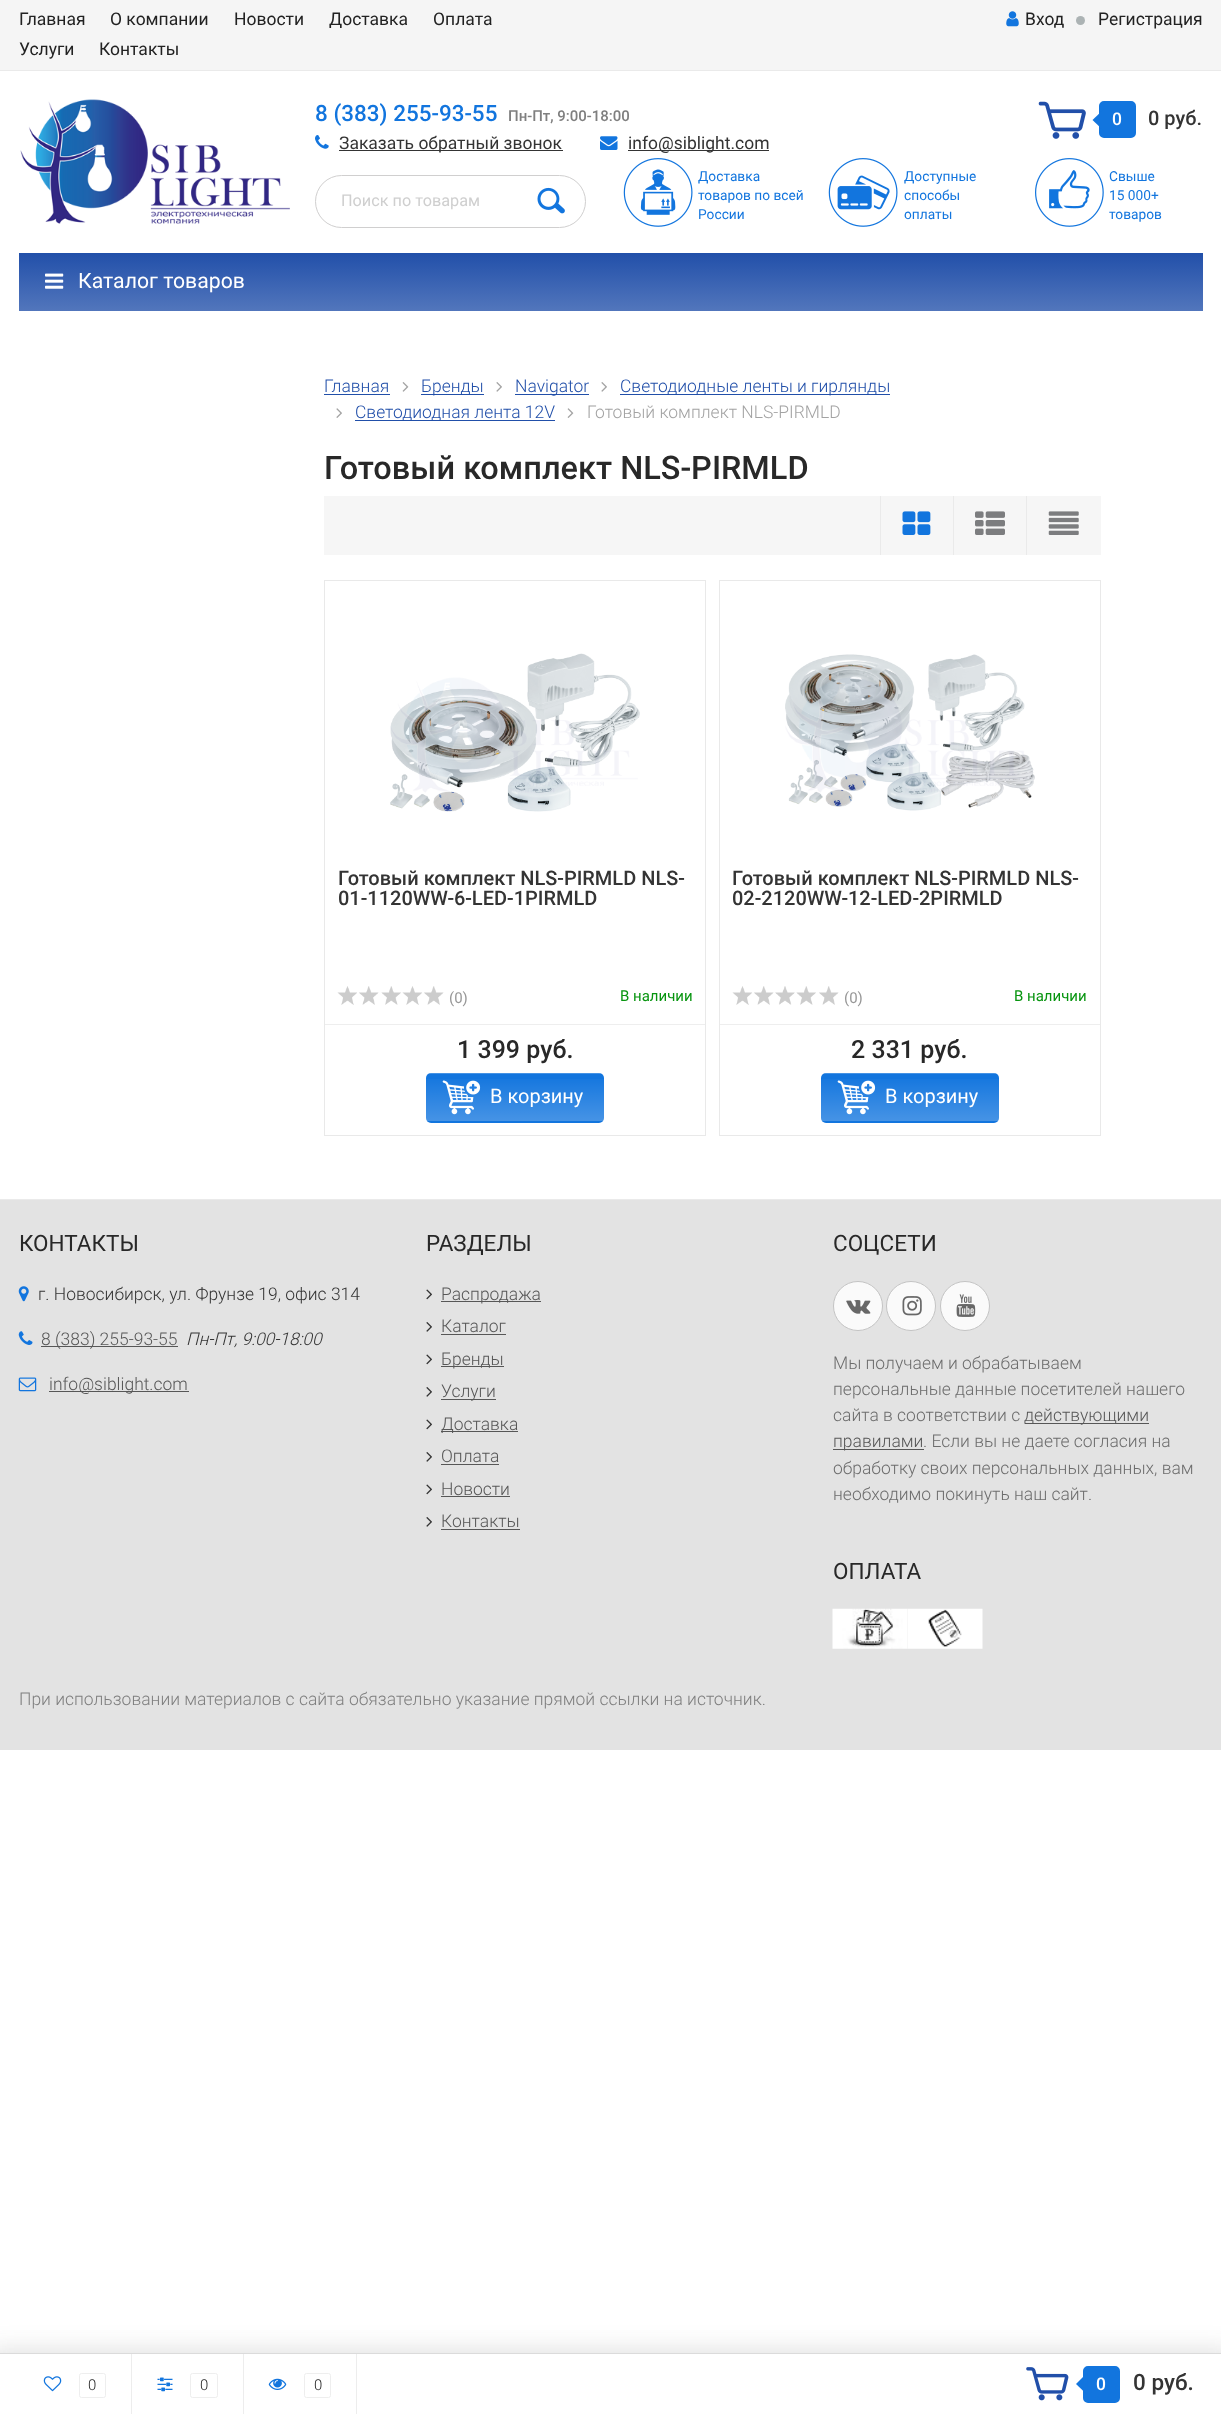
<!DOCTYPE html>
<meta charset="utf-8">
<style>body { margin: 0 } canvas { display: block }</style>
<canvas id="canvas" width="1221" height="2414"></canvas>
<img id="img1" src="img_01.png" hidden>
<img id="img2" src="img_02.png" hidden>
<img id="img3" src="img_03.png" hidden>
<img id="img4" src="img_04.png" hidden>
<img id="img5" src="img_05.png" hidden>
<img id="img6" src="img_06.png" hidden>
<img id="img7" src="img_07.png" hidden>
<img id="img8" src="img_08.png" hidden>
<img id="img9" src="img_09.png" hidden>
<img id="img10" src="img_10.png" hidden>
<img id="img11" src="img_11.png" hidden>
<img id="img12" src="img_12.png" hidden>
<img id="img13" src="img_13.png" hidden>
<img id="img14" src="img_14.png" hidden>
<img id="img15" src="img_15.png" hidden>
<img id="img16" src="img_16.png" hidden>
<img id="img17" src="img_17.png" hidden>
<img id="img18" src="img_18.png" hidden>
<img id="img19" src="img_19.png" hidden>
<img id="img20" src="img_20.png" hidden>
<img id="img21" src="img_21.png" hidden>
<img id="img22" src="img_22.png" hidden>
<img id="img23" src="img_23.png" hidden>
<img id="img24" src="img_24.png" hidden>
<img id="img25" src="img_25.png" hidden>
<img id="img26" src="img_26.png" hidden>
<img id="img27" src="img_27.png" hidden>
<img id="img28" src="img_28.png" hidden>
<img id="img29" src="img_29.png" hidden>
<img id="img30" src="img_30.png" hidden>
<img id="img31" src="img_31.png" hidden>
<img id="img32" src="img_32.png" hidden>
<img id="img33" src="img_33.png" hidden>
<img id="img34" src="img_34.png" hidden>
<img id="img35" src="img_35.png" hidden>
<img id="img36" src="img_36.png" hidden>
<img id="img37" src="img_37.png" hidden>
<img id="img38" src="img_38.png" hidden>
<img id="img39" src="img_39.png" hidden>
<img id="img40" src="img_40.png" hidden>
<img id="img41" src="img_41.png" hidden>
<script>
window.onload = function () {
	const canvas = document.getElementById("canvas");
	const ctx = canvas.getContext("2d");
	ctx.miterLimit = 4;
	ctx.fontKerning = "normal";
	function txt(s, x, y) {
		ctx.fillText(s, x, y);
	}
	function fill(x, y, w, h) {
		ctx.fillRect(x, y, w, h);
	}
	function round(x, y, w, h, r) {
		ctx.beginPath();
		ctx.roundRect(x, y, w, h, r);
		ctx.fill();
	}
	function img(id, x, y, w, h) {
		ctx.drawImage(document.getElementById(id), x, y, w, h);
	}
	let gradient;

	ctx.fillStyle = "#FFFFFF";
	fill(0, 0, 1221, 2414);
	ctx.fillStyle = "#F5F5F5";
	fill(0, 0, 1221, 70);
	ctx.fillStyle = "#EAEAEA";
	fill(0, 70, 1221, 1);
	img("img1", 1006, 11, 13, 16);
	ctx.fillStyle = "#ACB3B4";
	ctx.beginPath();
	ctx.arc(1080.5, 20.5, 4.5, 0, Math.PI * 2);
	ctx.fill();
	img("img2", 20, 99, 270, 125);
	img("img3", 315, 135, 14, 14);
	ctx.fillStyle = "#343434";
	fill(339, 150, 224, 1);
	img("img4", 600, 136, 18, 14);
	fill(628, 150, 141, 1);
	img("img5", 1038, 101, 48, 38);
	ctx.fillStyle = "#1275DE";
	ctx.beginPath();
	ctx.roundRect(1101.5, 103.5, 32, 32, 2.5);
	ctx.fill();
	ctx.strokeStyle = "#1275DE";
	ctx.lineWidth = 5;
	ctx.stroke();
	ctx.beginPath();
	ctx.moveTo(1104, 109);
	ctx.lineTo(1104, 131);
	ctx.lineTo(1092.5, 120);
	ctx.closePath();
	ctx.fill();
	ctx.beginPath();
	ctx.roundRect(315.5, 175.5, 270, 52, 26);
	ctx.strokeStyle = "#D0CFCF";
	ctx.lineWidth = 1;
	ctx.stroke();
	img("img6", 537, 187, 28, 27);
	img("img7", 623, 158, 70, 69);
	img("img8", 828, 158, 70, 69);
	img("img9", 1035, 158, 69, 69);
	gradient = ctx.createLinearGradient(611, 252, 611, 311);
	gradient.addColorStop(0, "#214FA9");
	gradient.addColorStop(1, "#5276BC");
	ctx.fillStyle = gradient;
	fill(19, 253, 1184, 58);
	img("img10", 45, 273, 19, 16);
	ctx.fillStyle = "#214FA9";
	fill(324, 394, 66, 1);
	img("img11", 402, 382, 7, 10);
	fill(421, 394, 63, 1);
	img("img12", 496, 382, 6, 10);
	fill(515, 394, 74, 1);
	img("img12", 601, 382, 6, 10);
	fill(620, 394, 270, 1);
	img("img13", 336, 408, 6, 10);
	fill(355, 420, 200, 1);
	img("img14", 567, 408, 7, 10);
	ctx.fillStyle = "#F6F6F6";
	fill(324, 496, 777, 59);
	ctx.fillStyle = "#EAEAEA";
	fill(880, 496, 1, 59);
	img("img15", 902, 511, 29, 24);
	fill(953, 496, 1, 59);
	img("img16", 975, 511, 30, 24);
	fill(1026, 496, 1, 59);
	img("img17", 1048, 511, 31, 24);
	ctx.strokeStyle = "#E9E9E9";
	ctx.strokeRect(324.5, 580.5, 381, 555);
	img("img18", 390, 653, 250, 159);
	img("img19", 337, 986, 20, 19);
	img("img20", 359, 986, 20, 19);
	img("img21", 381, 986, 20, 19);
	img("img19", 402, 986, 20, 19);
	img("img22", 424, 986, 20, 19);
	ctx.fillStyle = "#EEEEEE";
	fill(325, 1024, 380, 1);
	ctx.fillStyle = "#1275DE";
	round(426, 1073, 178, 50, 5);
	ctx.save();
	ctx.beginPath();
	ctx.roundRect(426, 1073, 178, 50, 5);
	ctx.clip();
	gradient = ctx.createLinearGradient(515, 1026, 515, 1074);
	gradient.addColorStop(0, "rgba(255, 255, 255, 0)");
	gradient.addColorStop(1, "rgba(255, 255, 255, 0.22)");
	ctx.fillStyle = gradient;
	fill(426, 1073, 178, 1);
	ctx.restore();
	gradient = ctx.createLinearGradient(515, 1074, 515, 1121);
	gradient.addColorStop(0, "rgba(255, 255, 255, 0)");
	gradient.addColorStop(1, "rgba(255, 255, 255, 0.22)");
	ctx.fillStyle = gradient;
	fill(426, 1079, 178, 42);
	img("img23", 442, 1080, 39, 35);
	ctx.strokeRect(719.5, 580.5, 381, 555);
	img("img24", 785, 654, 250, 157);
	img("img25", 732, 986, 20, 19);
	img("img26", 754, 986, 20, 19);
	img("img27", 775, 986, 20, 19);
	img("img21", 796, 986, 20, 19);
	img("img20", 819, 986, 20, 19);
	ctx.fillStyle = "#EEEEEE";
	fill(720, 1024, 380, 1);
	ctx.fillStyle = "#1275DE";
	round(821, 1073, 178, 50, 5);
	ctx.save();
	ctx.beginPath();
	ctx.roundRect(821, 1073, 178, 50, 5);
	ctx.clip();
	gradient = ctx.createLinearGradient(910, 1026, 910, 1074);
	gradient.addColorStop(0, "rgba(255, 255, 255, 0)");
	gradient.addColorStop(1, "rgba(255, 255, 255, 0.22)");
	ctx.fillStyle = gradient;
	fill(821, 1073, 178, 1);
	ctx.restore();
	gradient = ctx.createLinearGradient(910, 1074, 910, 1121);
	gradient.addColorStop(0, "rgba(255, 255, 255, 0)");
	gradient.addColorStop(1, "rgba(255, 255, 255, 0.22)");
	ctx.fillStyle = gradient;
	fill(821, 1079, 178, 42);
	img("img23", 837, 1080, 39, 35);
	ctx.fillStyle = "#E3E3E3";
	fill(0, 1200, 1221, 550);
	ctx.fillStyle = "#EAEAEA";
	fill(0, 1199, 1221, 1);
	img("img28", 18, 1286, 11, 16);
	img("img29", 18, 1331, 15, 14);
	ctx.fillStyle = "#575757";
	fill(41, 1346, 137, 1);
	img("img30", 18, 1377, 19, 15);
	fill(49, 1391, 140, 1);
	img("img31", 426, 1289, 6, 11);
	fill(441, 1301, 100, 1);
	img("img32", 426, 1322, 6, 10);
	fill(441, 1334, 65, 1);
	img("img31", 426, 1354, 6, 11);
	fill(441, 1366, 63, 1);
	img("img32", 426, 1387, 6, 10);
	fill(441, 1399, 55, 1);
	img("img31", 426, 1419, 6, 11);
	fill(441, 1431, 77, 1);
	img("img32", 426, 1452, 6, 10);
	fill(441, 1464, 58, 1);
	img("img31", 426, 1484, 6, 11);
	fill(441, 1496, 69, 1);
	img("img32", 426, 1517, 6, 10);
	fill(441, 1529, 79, 1);
	ctx.fillStyle = "#FAFAFA";
	ctx.beginPath();
	ctx.arc(858, 1306, 24.5, 0, Math.PI * 2);
	ctx.fill();
	ctx.strokeStyle = "#C4C4C4";
	ctx.stroke();
	img("img33", 846, 1300, 25, 14);
	ctx.beginPath();
	ctx.arc(911, 1306, 24.5, 0, Math.PI * 2);
	ctx.fill();
	ctx.stroke();
	img("img34", 902, 1296, 20, 20);
	ctx.beginPath();
	ctx.arc(965, 1306, 24.5, 0, Math.PI * 2);
	ctx.fill();
	ctx.stroke();
	img("img35", 956, 1294, 20, 23);
	ctx.fillStyle = "#575757";
	fill(1025, 1423, 124, 1);
	fill(833, 1449, 91, 1);
	img("img36", 832, 1608, 76, 41);
	img("img37", 907, 1608, 76, 41);
	ctx.fillStyle = "rgba(50, 50, 50, 0.15)";
	ctx.filter = "blur(12.5px)";
	ctx.beginPath();
	ctx.rect(-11, 2350, 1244, 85);
	ctx.fill();
	ctx.filter = "none";
	ctx.fillStyle = "#FFFFFF";
	fill(0, 2354, 1221, 60);
	ctx.fillStyle = "#DBDBDB";
	fill(0, 2353, 1221, 1);
	ctx.fillStyle = "#EDEDED";
	fill(131, 2354, 1, 60);
	img("img38", 43, 2376, 19, 16);
	ctx.beginPath();
	ctx.roundRect(79.5, 2373.5, 26, 24, 2);
	ctx.strokeStyle = "#EEEEEE";
	ctx.stroke();
	fill(243, 2354, 1, 60);
	img("img39", 157, 2377, 16, 15);
	ctx.beginPath();
	ctx.roundRect(190.5, 2373.5, 27, 24, 2);
	ctx.stroke();
	fill(356, 2354, 1, 60);
	img("img40", 268, 2378, 19, 12);
	ctx.beginPath();
	ctx.roundRect(304.5, 2373.5, 26, 24, 2);
	ctx.stroke();
	img("img41", 1026, 2367, 43, 34);
	ctx.fillStyle = "#1275DE";
	ctx.beginPath();
	ctx.roundRect(1085.5, 2368.5, 32, 32, 2.5);
	ctx.fill();
	ctx.strokeStyle = "#1275DE";
	ctx.lineWidth = 5;
	ctx.stroke();
	ctx.beginPath();
	ctx.moveTo(1087.5, 2372.5);
	ctx.lineTo(1087.5, 2395);
	ctx.lineTo(1076, 2384);
	ctx.closePath();
	ctx.fill();
	ctx.font = "17.5px Roboto";
	ctx.fillStyle = "#222222";
	txt("Главная", 19, 25);
	txt("О компании", 110, 25);
	txt("Новости", 234, 25);
	txt("Доставка", 329, 25);
	txt("Оплата", 433, 25);
	txt("Услуги", 19, 55);
	txt("Контакты", 99, 55);
	txt("Вход", 1025, 25);
	txt("Регистрация", 1098, 25);
	ctx.font = "500 22.5px Roboto";
	ctx.fillStyle = "#1275DE";
	txt("8 (383) 255-93-55", 315, 121);
	ctx.font = "500 15px Roboto";
	ctx.fillStyle = "#7F7F7F";
	txt("Пн-Пт, 9:00-18:00", 508, 121);
	ctx.font = "17.5px Roboto";
	ctx.fillStyle = "#343434";
	txt("Заказать обратный звонок", 339, 149);
	txt("info@siblight.com", 628, 149);
	ctx.font = "500 17.5px Roboto";
	ctx.fillStyle = "#FFFFFF";
	txt("0", 1112, 125);
	ctx.font = "500 20px Roboto";
	ctx.fillStyle = "#343434";
	txt("0 руб.", 1148, 125);
	ctx.font = "16.25px Roboto";
	ctx.fillStyle = "#CFCFCF";
	txt("Поиск по товарам", 341, 206);
	ctx.font = "13.75px Roboto";
	ctx.fillStyle = "#1275DE";
	txt("Доставка", 698, 181);
	txt("товаров по всей", 698, 200);
	txt("России", 698, 219);
	txt("Доступные", 904, 181);
	txt("способы", 904, 200);
	txt("оплаты", 904, 219);
	txt("Свыше", 1109, 181);
	txt("15 000+", 1109, 200);
	txt("товаров", 1109, 219);
	ctx.font = "21.25px Roboto";
	ctx.fillStyle = "#FFFFFF";
	txt("Каталог товаров", 78, 288);
	ctx.font = "300 17.5px Roboto";
	ctx.fillStyle = "#214FA9";
	txt("Главная", 324, 392);
	txt("Бренды", 421, 392);
	txt("Navigator", 515, 392);
	txt("Светодиодные ленты и гирлянды", 620, 392);
	txt("Светодиодная лента 12V", 355, 418);
	ctx.fillStyle = "#A3A3A3";
	txt("Готовый комплект NLS-PIRMLD", 587, 418);
	ctx.font = "500 32.5px Roboto";
	ctx.fillStyle = "#282828";
	txt("Готовый комплект NLS-PIRMLD", 324, 479);
	ctx.font = "500 20px Roboto";
	ctx.fillStyle = "#343434";
	txt("Готовый комплект NLS-PIRMLD NLS-", 338, 885);
	txt("01-1120WW-6-LED-1PIRMLD", 338, 905);
	ctx.font = "15px Roboto";
	ctx.fillStyle = "#979797";
	txt("(0)", 449, 1003);
	ctx.fillStyle = "#089510";
	txt("В наличии", 620, 1001);
	ctx.font = "500 25px Roboto";
	ctx.fillStyle = "#282828";
	txt("1 399 руб.", 457, 1058);
	ctx.font = "20px Roboto";
	ctx.fillStyle = "#FFFFFF";
	txt("В корзину", 490, 1103);
	ctx.font = "500 20px Roboto";
	ctx.fillStyle = "#343434";
	txt("Готовый комплект NLS-PIRMLD NLS-", 732, 885);
	txt("02-2120WW-12-LED-2PIRMLD", 732, 905);
	ctx.font = "15px Roboto";
	ctx.fillStyle = "#979797";
	txt("(0)", 844, 1003);
	ctx.fillStyle = "#089510";
	txt("В наличии", 1014, 1001);
	ctx.font = "500 25px Roboto";
	ctx.fillStyle = "#282828";
	txt("2 331 руб.", 851, 1058);
	ctx.font = "20px Roboto";
	ctx.fillStyle = "#FFFFFF";
	txt("В корзину", 885, 1103);
	ctx.font = "22.5px Roboto";
	ctx.fillStyle = "#282828";
	txt("КОНТАКТЫ", 19, 1251);
	ctx.font = "300 17.5px Roboto";
	ctx.fillStyle = "#343434";
	txt("г. Новосибирск, ул. Фрунзе 19, офис 314", 38, 1300);
	ctx.fillStyle = "#575757";
	txt("8 (383) 255-93-55", 41, 1345);
	ctx.font = "italic 300 17.5px Roboto";
	ctx.fillStyle = "#343434";
	txt("Пн-Пт, 9:00-18:00", 186, 1345);
	ctx.font = "300 17.5px Roboto";
	ctx.fillStyle = "#575757";
	txt("info@siblight.com", 49, 1390);
	ctx.font = "22.5px Roboto";
	ctx.fillStyle = "#282828";
	txt("РАЗДЕЛЫ", 426, 1251);
	ctx.font = "300 17.5px Roboto";
	ctx.fillStyle = "#575757";
	txt("Распродажа", 441, 1300);
	txt("Каталог", 441, 1332);
	txt("Бренды", 441, 1365);
	txt("Услуги", 441, 1397);
	txt("Доставка", 441, 1430);
	txt("Оплата", 441, 1462);
	txt("Новости", 441, 1495);
	txt("Контакты", 441, 1527);
	ctx.font = "22.5px Roboto";
	ctx.fillStyle = "#282828";
	txt("СОЦСЕТИ", 833, 1251);
	ctx.font = "300 17.5px Roboto";
	ctx.fillStyle = "#6D6D6D";
	txt("Мы получаем и обрабатываем", 833, 1369);
	txt("персональные данные посетителей нашего", 833, 1395);
	txt("сайта в соответствии с", 833, 1421);
	ctx.fillStyle = "#575757";
	txt("действующими", 1024, 1421);
	txt("правилами", 833, 1447);
	ctx.fillStyle = "#6D6D6D";
	txt(". Если вы не даете согласия на", 923, 1447);
	txt("обработку своих персональных данных, вам", 833, 1474);
	txt("необходимо покинуть наш сайт.", 833, 1500);
	ctx.font = "22.5px Roboto";
	ctx.fillStyle = "#282828";
	txt("ОПЛАТА", 833, 1579);
	ctx.font = "300 17.5px Roboto";
	ctx.fillStyle = "#7F7F7F";
	txt("При использовании материалов с сайта обязательно указание прямой ссылки на источник.", 19, 1705);
	ctx.font = "300 15px Roboto";
	ctx.fillStyle = "#222222";
	txt("0", 88, 2390);
	txt("0", 200, 2390);
	txt("0", 314, 2390);
	ctx.font = "500 17.5px Roboto";
	ctx.fillStyle = "#FFFFFF";
	txt("0", 1096, 2390);
	ctx.font = "500 22.5px Roboto";
	ctx.fillStyle = "#343434";
	txt("0 руб.", 1133, 2390);
};
</script>
